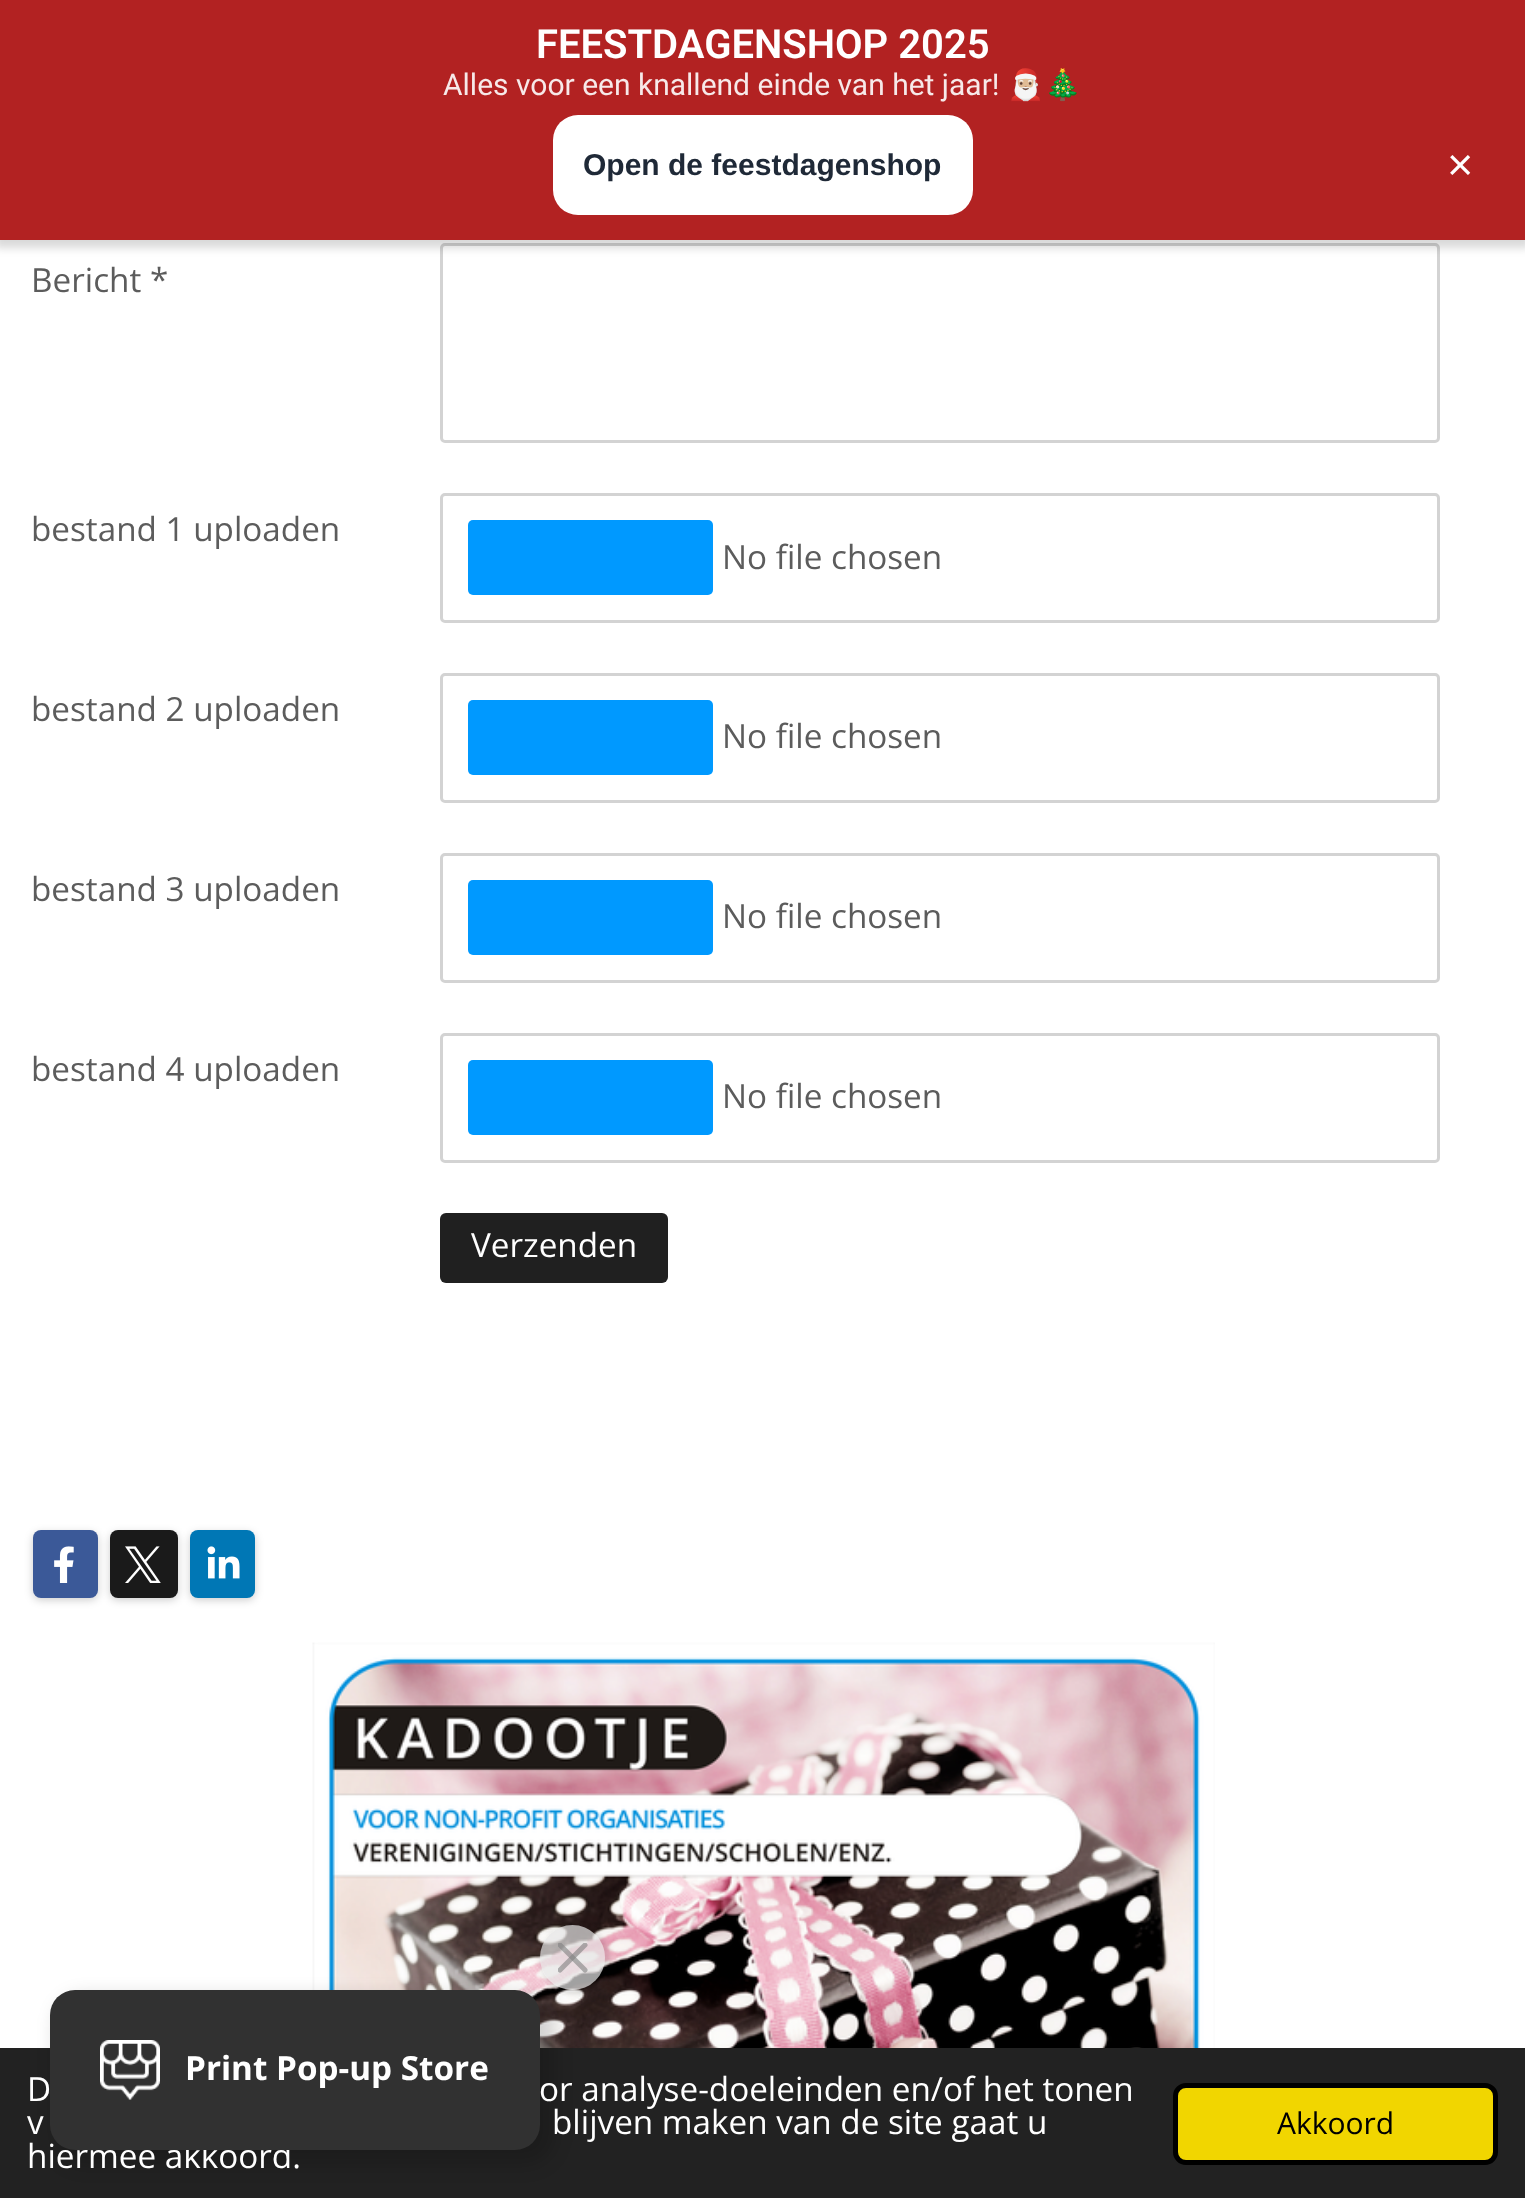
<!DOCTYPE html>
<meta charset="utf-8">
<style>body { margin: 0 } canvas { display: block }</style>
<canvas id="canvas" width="1525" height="2198"></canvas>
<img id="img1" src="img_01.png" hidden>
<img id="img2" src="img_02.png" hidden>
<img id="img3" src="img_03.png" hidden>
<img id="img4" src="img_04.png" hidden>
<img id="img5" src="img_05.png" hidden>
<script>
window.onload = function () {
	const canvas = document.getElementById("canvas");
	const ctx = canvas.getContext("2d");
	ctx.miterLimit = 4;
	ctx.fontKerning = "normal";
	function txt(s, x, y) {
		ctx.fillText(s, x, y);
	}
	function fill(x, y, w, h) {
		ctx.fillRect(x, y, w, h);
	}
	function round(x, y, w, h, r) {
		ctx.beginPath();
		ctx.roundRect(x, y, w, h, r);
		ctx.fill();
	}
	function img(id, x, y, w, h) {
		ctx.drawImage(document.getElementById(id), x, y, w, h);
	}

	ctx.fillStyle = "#FFFFFF";
	fill(0, 0, 1525, 2198);
	ctx.beginPath();
	ctx.roundRect(441.5, 244.5, 997, 197, 3.5);
	ctx.strokeStyle = "#D3D3D3";
	ctx.lineWidth = 3;
	ctx.stroke();
	ctx.fillStyle = "rgba(0, 0, 0, 0.15)";
	ctx.filter = "blur(4px)";
	ctx.beginPath();
	ctx.rect(-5, -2, 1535, 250);
	ctx.fill();
	ctx.filter = "none";
	ctx.fillStyle = "#B22222";
	fill(0, 0, 1525, 240);
	ctx.fillStyle = "#FFFFFF";
	round(553, 115, 420, 100, 25);
	ctx.beginPath();
	ctx.roundRect(441.5, 494.5, 997, 127, 3.5);
	ctx.stroke();
	ctx.fillStyle = "#0099FF";
	round(468, 520, 245, 75, 5);
	ctx.beginPath();
	ctx.roundRect(441.5, 674.5, 997, 127, 3.5);
	ctx.stroke();
	round(468, 700, 245, 75, 5);
	ctx.beginPath();
	ctx.roundRect(441.5, 854.5, 997, 127, 3.5);
	ctx.stroke();
	round(468, 880, 245, 75, 5);
	ctx.beginPath();
	ctx.roundRect(441.5, 1034.5, 997, 127, 3.5);
	ctx.stroke();
	round(468, 1060, 245, 75, 5);
	ctx.fillStyle = "#202020";
	round(440, 1213, 228, 70, 6);
	ctx.fillStyle = "rgba(0, 0, 0, 0.2)";
	ctx.filter = "blur(4px)";
	ctx.beginPath();
	ctx.roundRect(33, 1533, 65, 67, 8);
	ctx.fill();
	ctx.filter = "none";
	ctx.fillStyle = "#3B5998";
	round(33, 1530, 65, 68, 8);
	img("img1", 54, 1546, 20, 37);
	ctx.fillStyle = "rgba(0, 0, 0, 0.2)";
	ctx.filter = "blur(4px)";
	ctx.beginPath();
	ctx.roundRect(110, 1533, 68, 67, 8);
	ctx.fill();
	ctx.filter = "none";
	ctx.fillStyle = "#1A1A1A";
	round(110, 1530, 68, 68, 8);
	img("img2", 125, 1546, 36, 37);
	ctx.fillStyle = "rgba(0, 0, 0, 0.2)";
	ctx.filter = "blur(4px)";
	ctx.beginPath();
	ctx.roundRect(190, 1533, 65, 67, 8);
	ctx.fill();
	ctx.filter = "none";
	ctx.fillStyle = "#0077B5";
	round(190, 1530, 65, 68, 8);
	img("img3", 207, 1546, 33, 33);
	img("img4", 312, 1642, 903, 406);
	ctx.fillStyle = "#222222";
	fill(0, 2048, 1525, 150);
	ctx.fillStyle = "rgba(0, 0, 0, 0.16)";
	ctx.filter = "blur(9px)";
	ctx.beginPath();
	ctx.roundRect(55, 1995, 500, 170, 30);
	ctx.fill();
	ctx.filter = "none";
	ctx.fillStyle = "#F1D600";
	ctx.beginPath();
	ctx.roundRect(1175.5, 2085.5, 320, 77, 10.5);
	ctx.fill();
	ctx.strokeStyle = "#000000";
	ctx.lineWidth = 5;
	ctx.stroke();
	ctx.font = "600 40px Roboto";
	ctx.fillStyle = "#FFFFFF";
	txt("FEESTDAGENSHOP 2025", 536, 58);
	ctx.font = "30px Roboto";
	ctx.fillStyle = "#F7E9E9";
	txt("Alles voor een knallend einde van het jaar!", 443, 95);
	ctx.font = "30px Noto Color Emoji";
	txt("🎅🏼🎄", 1007, 95);
	ctx.font = "bold 30px Liberation Sans";
	ctx.fillStyle = "#1F2937";
	txt("Open de feestdagenshop", 583, 175);
	ctx.font = "45px Liberation Sans";
	ctx.fillStyle = "#FFFFFF";
	txt("×", 1447, 180);
	ctx.font = "33.25px Open Sans";
	ctx.fillStyle = "#5C5C5C";
	txt("Bericht *", 31, 292);
	txt("bestand 1 uploaden", 31, 541);
	txt("No file chosen", 722, 569);
	txt("bestand 2 uploaden", 31, 721);
	txt("No file chosen", 722, 748);
	txt("bestand 3 uploaden", 31, 901);
	txt("No file chosen", 722, 928);
	txt("bestand 4 uploaden", 31, 1081);
	txt("No file chosen", 722, 1108);
	ctx.fillStyle = "#FFFFFF";
	txt("Verzenden", 471, 1257);
	txt("D", 27, 2101);
	txt("or analyse-doeleinden en/of het tonen", 539, 2101);
	txt("v", 27, 2134);
	txt("blijven maken van de site gaat u", 552, 2134);
	txt("hiermee akkoord.", 27, 2168);
	ctx.fillStyle = "#313131";
	round(50, 1990, 490, 160, 25);
	ctx.save();
	ctx.beginPath();
	ctx.moveTo(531, 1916);
	ctx.lineTo(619, 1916);
	ctx.lineTo(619, 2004);
	ctx.lineTo(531, 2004);
	ctx.closePath();
	ctx.moveTo(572.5, 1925);
	ctx.bezierCurveTo(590.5, 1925, 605, 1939.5, 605, 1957.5);
	ctx.bezierCurveTo(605, 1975.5, 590.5, 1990, 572.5, 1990);
	ctx.bezierCurveTo(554.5, 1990, 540, 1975.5, 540, 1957.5);
	ctx.bezierCurveTo(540, 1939.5, 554.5, 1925, 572.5, 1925);
	ctx.closePath();
	ctx.clip("evenodd");
	ctx.fillStyle = "rgba(0, 0, 0, 0.1)";
	ctx.filter = "blur(2.5px)";
	ctx.beginPath();
	ctx.roundRect(540, 1925, 70, 70, 35);
	ctx.fill();
	ctx.filter = "none";
	ctx.restore();
	ctx.fillStyle = "rgba(230, 230, 230, 0.7)";
	ctx.beginPath();
	ctx.arc(572.5, 1957.5, 32.5, 0, Math.PI * 2);
	ctx.fill();
	ctx.save();
	ctx.beginPath();
	ctx.rect(558, 1943, 30, 30);
	ctx.clip();
	ctx.beginPath();
	ctx.moveTo(560, 1945);
	ctx.lineTo(585, 1970);
	ctx.strokeStyle = "rgba(128, 128, 128, 0.6)";
	ctx.lineCap = "round";
	ctx.stroke();
	ctx.beginPath();
	ctx.moveTo(560, 1970);
	ctx.lineTo(585, 1945);
	ctx.stroke();
	ctx.restore();
	ctx.font = "bold 33.25px Open Sans";
	ctx.fillStyle = "#FFFFFF";
	txt("Print Pop-up Store", 185, 2080);
	img("img5", 100, 2040, 60, 60);
	ctx.font = "30px Open Sans";
	ctx.fillStyle = "#000000";
	txt("Akkoord", 1277, 2134);
};
</script>
